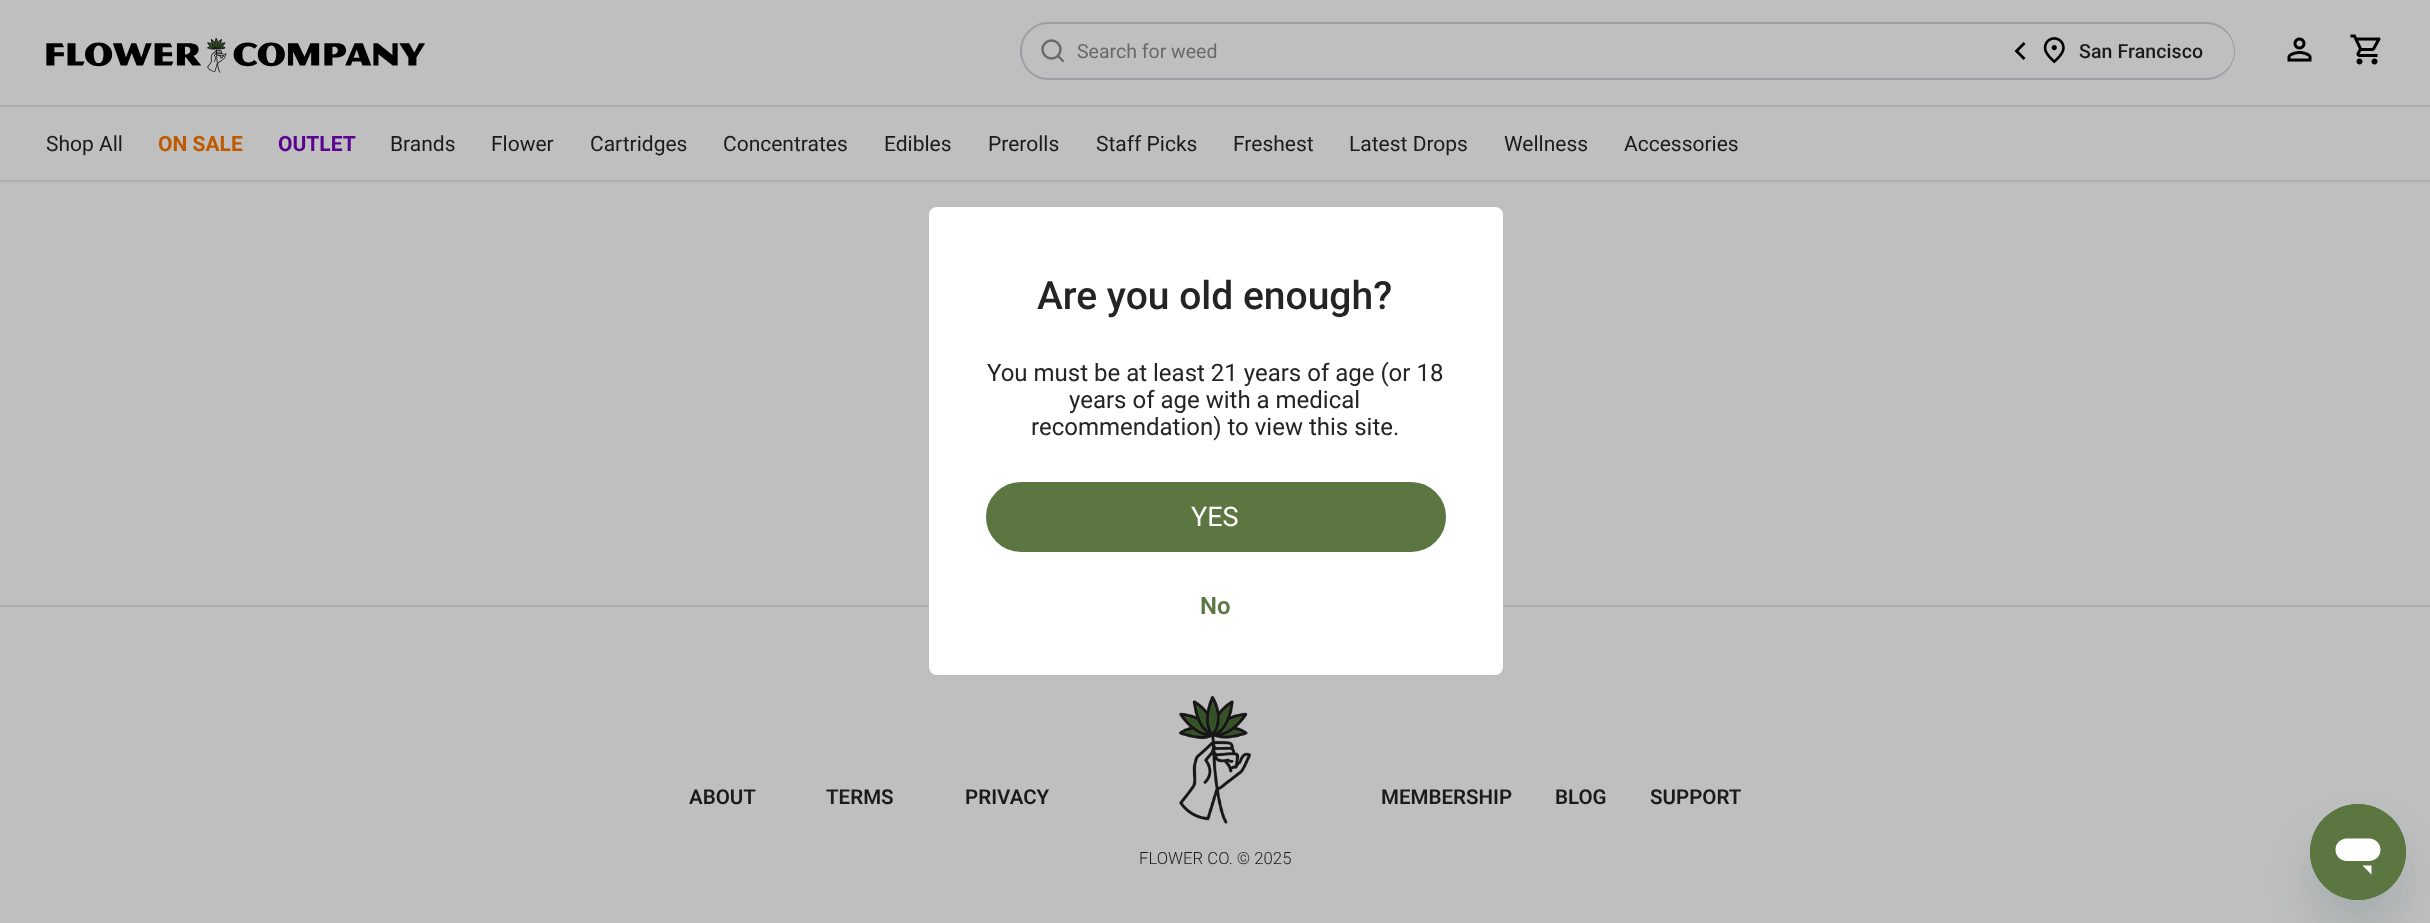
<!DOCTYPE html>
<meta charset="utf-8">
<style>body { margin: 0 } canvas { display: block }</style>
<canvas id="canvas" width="2430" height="923"></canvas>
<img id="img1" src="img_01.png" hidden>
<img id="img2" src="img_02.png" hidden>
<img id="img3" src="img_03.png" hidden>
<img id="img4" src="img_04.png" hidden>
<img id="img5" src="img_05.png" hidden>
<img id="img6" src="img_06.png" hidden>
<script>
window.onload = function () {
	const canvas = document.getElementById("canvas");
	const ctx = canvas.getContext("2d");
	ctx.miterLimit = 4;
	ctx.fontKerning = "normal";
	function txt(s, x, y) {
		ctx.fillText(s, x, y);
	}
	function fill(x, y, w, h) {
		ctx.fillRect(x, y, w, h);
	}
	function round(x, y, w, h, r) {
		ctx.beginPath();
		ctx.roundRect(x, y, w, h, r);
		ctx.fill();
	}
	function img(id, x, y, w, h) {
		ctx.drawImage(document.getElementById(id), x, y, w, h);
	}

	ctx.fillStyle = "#BFBFBF";
	fill(0, 0, 2430, 923);
	ctx.fillStyle = "#AFADAD";
	fill(0, 105, 2430, 2);
	img("img1", 46, 38, 379, 35);
	ctx.beginPath();
	ctx.arc(1051.5, 49.5, 9, 0, Math.PI * 2);
	ctx.strokeStyle = "#696969";
	ctx.lineWidth = 2.4;
	ctx.stroke();
	ctx.beginPath();
	ctx.moveTo(1058, 56);
	ctx.lineTo(1063, 61);
	ctx.lineCap = "round";
	ctx.lineJoin = "round";
	ctx.stroke();
	ctx.fillStyle = "#9B9FA4";
	ctx.beginPath();
	ctx.moveTo(2002, 22);
	ctx.lineTo(2206, 22);
	ctx.bezierCurveTo(2222, 22, 2235, 35, 2235, 51);
	ctx.bezierCurveTo(2235, 67, 2222, 80, 2206, 80);
	ctx.lineTo(2002, 80);
	ctx.closePath();
	ctx.moveTo(2002, 24);
	ctx.lineTo(2206, 24);
	ctx.bezierCurveTo(2221, 24, 2234, 36, 2234, 51);
	ctx.bezierCurveTo(2234, 66, 2221, 78, 2206, 78);
	ctx.lineTo(2002, 78);
	ctx.closePath();
	ctx.fill("evenodd");
	ctx.beginPath();
	ctx.moveTo(1048, 22);
	ctx.lineTo(2004, 22);
	ctx.lineTo(2004, 80);
	ctx.lineTo(1048, 80);
	ctx.bezierCurveTo(1033, 80, 1020, 67, 1020, 51);
	ctx.bezierCurveTo(1020, 35, 1033, 22, 1048, 22);
	ctx.closePath();
	ctx.moveTo(1048, 24);
	ctx.lineTo(2004, 24);
	ctx.lineTo(2004, 78);
	ctx.lineTo(1048, 78);
	ctx.bezierCurveTo(1034, 78, 1022, 66, 1022, 51);
	ctx.bezierCurveTo(1022, 36, 1034, 24, 1048, 24);
	ctx.closePath();
	ctx.fill("evenodd");
	ctx.fillStyle = "#000000";
	ctx.beginPath();
	ctx.moveTo(2025.5, 44);
	ctx.lineTo(2023.5, 42);
	ctx.lineTo(2014.5, 51);
	ctx.lineTo(2023.5, 60);
	ctx.lineTo(2025.5, 58);
	ctx.lineTo(2018.5, 51);
	ctx.closePath();
	ctx.fill();
	img("img2", 2043, 37, 22, 27);
	img("img3", 2287, 37, 25, 25);
	img("img4", 2350, 34, 31, 31);
	ctx.fillStyle = "#AFADAD";
	fill(0, 180, 2430, 2);
	fill(0, 605, 2430, 2);
	ctx.fillStyle = "#FFFFFF";
	round(929, 207, 574, 468, 8);
	ctx.fillStyle = "#5B7640";
	ctx.beginPath();
	ctx.roundRect(987, 483, 458, 68, 34);
	ctx.fill();
	ctx.strokeStyle = "#5B7640";
	ctx.lineWidth = 2;
	ctx.lineJoin = "miter";
	ctx.stroke();
	img("img5", 1179, 696, 72, 128);
	ctx.fillStyle = "rgba(23, 73, 77, 0.15)";
	ctx.filter = "blur(22.5px)";
	ctx.beginPath();
	ctx.roundRect(2310, 834, 96, 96, 48);
	ctx.fill();
	ctx.filter = "none";
	img("img6", 2310, 804, 96, 96);
	ctx.font = "19.5px Roboto";
	ctx.fillStyle = "#696969";
	txt("Search for weed", 1077, 58);
	ctx.letterSpacing = "0.1px";
	ctx.font = "500 19.5px Roboto";
	ctx.fillStyle = "#1B1B1B";
	txt("San Francisco", 2079, 58);
	ctx.letterSpacing = "0px";
	ctx.font = "21px Roboto";
	txt("Shop All", 46, 151);
	ctx.font = "bold 21px Roboto";
	ctx.fillStyle = "#BF5900";
	txt("ON SALE", 158, 151);
	ctx.fillStyle = "#5B0291";
	txt("OUTLET", 278, 151);
	ctx.font = "21px Roboto";
	ctx.fillStyle = "#1B1B1B";
	txt("Brands", 390, 151);
	txt("Flower", 491, 151);
	txt("Cartridges", 590, 151);
	txt("Concentrates", 723, 151);
	txt("Edibles", 884, 151);
	txt("Prerolls", 988, 151);
	txt("Staff Picks", 1096, 151);
	txt("Freshest", 1233, 151);
	txt("Latest Drops", 1349, 151);
	txt("Wellness", 1504, 151);
	txt("Accessories", 1624, 151);
	ctx.font = "500 39px Roboto";
	ctx.fillStyle = "#242424";
	txt("Are you old enough?", 1037, 309);
	ctx.font = "24px Roboto";
	txt("You must be at least 21 years of age (or 18", 987, 381);
	txt("years of age with a medical", 1069, 408);
	txt("recommendation) to view this site.", 1031, 435);
	ctx.font = "27px Roboto";
	ctx.fillStyle = "#FFFFFF";
	txt("YES", 1191, 526);
	ctx.font = "600 24px Roboto";
	ctx.fillStyle = "#5B7640";
	txt("No", 1200, 614);
	ctx.font = "600 20.5px Roboto";
	ctx.fillStyle = "#1B1B1B";
	txt("ABOUT", 689, 804);
	txt("TERMS", 826, 804);
	txt("PRIVACY", 965, 804);
	txt("MEMBERSHIP", 1381, 804);
	txt("BLOG", 1555, 804);
	txt("SUPPORT", 1650, 804);
	ctx.font = "300 16.75px Roboto";
	txt("FLOWER CO. © 2025", 1139, 864);
};
</script>
